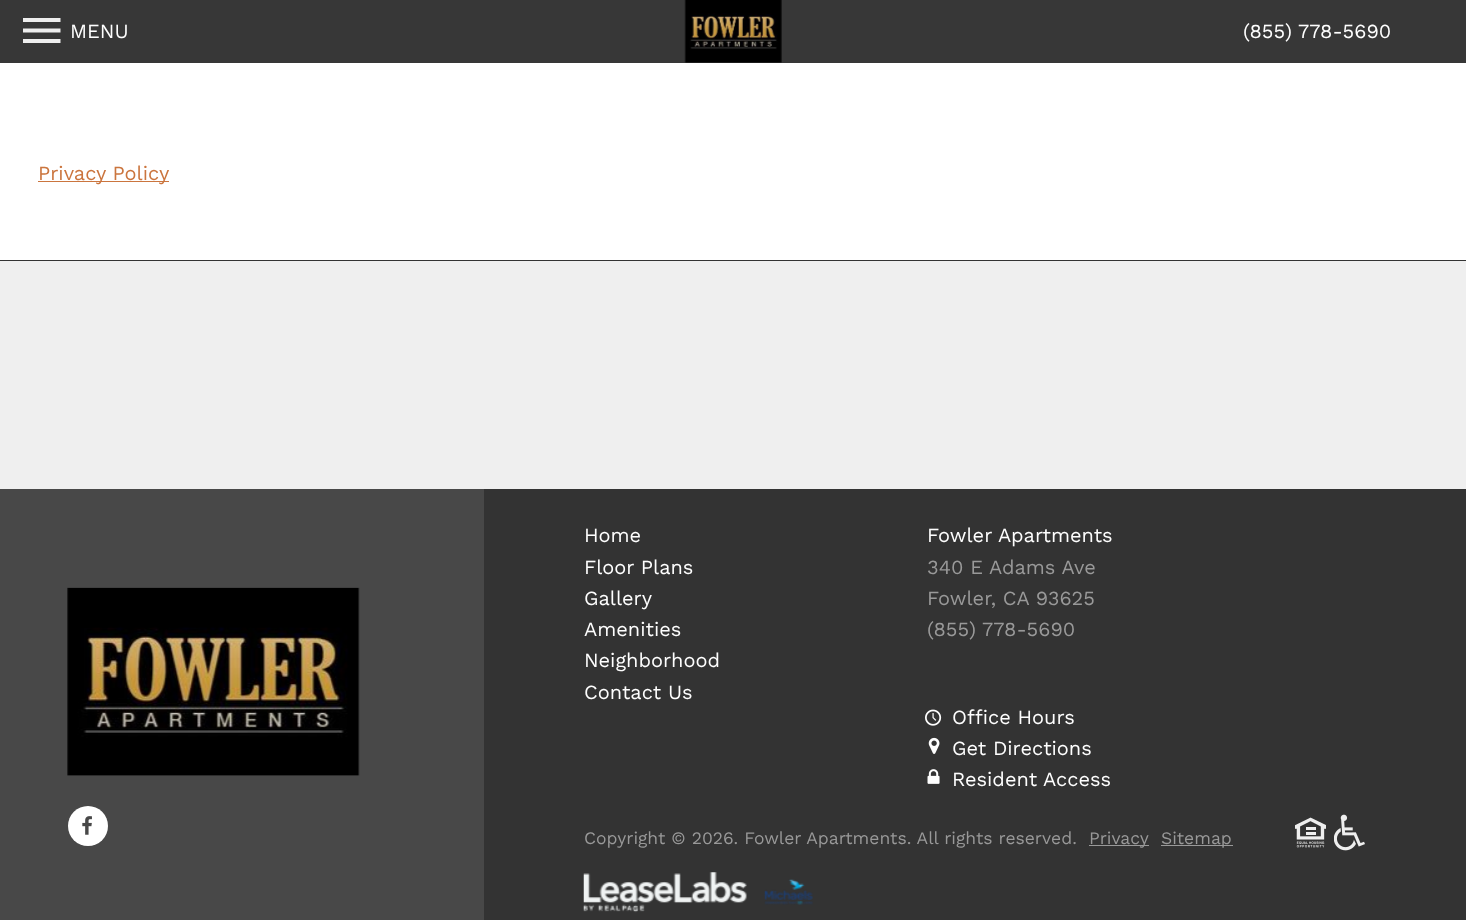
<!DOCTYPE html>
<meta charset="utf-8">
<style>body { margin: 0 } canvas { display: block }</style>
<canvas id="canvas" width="1466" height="920"></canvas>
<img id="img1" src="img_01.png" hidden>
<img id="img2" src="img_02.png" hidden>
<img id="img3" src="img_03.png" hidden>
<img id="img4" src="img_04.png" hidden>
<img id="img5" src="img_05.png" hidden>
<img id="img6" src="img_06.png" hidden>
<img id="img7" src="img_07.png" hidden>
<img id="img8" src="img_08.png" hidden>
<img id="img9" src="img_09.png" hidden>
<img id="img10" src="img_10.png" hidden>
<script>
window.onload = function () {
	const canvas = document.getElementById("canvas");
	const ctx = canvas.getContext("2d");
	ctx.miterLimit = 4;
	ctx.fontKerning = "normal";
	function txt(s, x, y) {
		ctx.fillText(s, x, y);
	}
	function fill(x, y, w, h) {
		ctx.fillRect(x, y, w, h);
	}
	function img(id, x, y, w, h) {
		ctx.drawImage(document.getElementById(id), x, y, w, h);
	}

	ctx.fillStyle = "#FFFFFF";
	fill(0, 0, 1466, 920);
	ctx.save();
	ctx.beginPath();
	ctx.moveTo(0, 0);
	ctx.lineTo(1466, 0);
	ctx.lineTo(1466, 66);
	ctx.lineTo(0, 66);
	ctx.closePath();
	ctx.moveTo(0, 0);
	ctx.lineTo(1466, 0);
	ctx.lineTo(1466, 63);
	ctx.lineTo(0, 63);
	ctx.closePath();
	ctx.clip("evenodd");
	ctx.fillStyle = "#666666";
	ctx.filter = "blur(0.5px)";
	ctx.beginPath();
	ctx.rect(0, 0, 1466, 63);
	ctx.fill();
	ctx.filter = "none";
	ctx.restore();
	ctx.fillStyle = "rgba(33, 33, 33, 0.9)";
	fill(0, 0, 1466, 63);
	ctx.fillStyle = "#EEEEEE";
	ctx.beginPath();
	ctx.moveTo(23, 43);
	ctx.lineTo(60.5, 43);
	ctx.lineTo(60.5, 39);
	ctx.lineTo(23, 39);
	ctx.closePath();
	ctx.moveTo(23, 32.5);
	ctx.lineTo(60.5, 32.5);
	ctx.lineTo(60.5, 28.5);
	ctx.lineTo(23, 28.5);
	ctx.closePath();
	ctx.moveTo(23, 18);
	ctx.lineTo(23, 22);
	ctx.lineTo(60.5, 22);
	ctx.lineTo(60.5, 18);
	ctx.closePath();
	ctx.fill();
	img("img1", 684, 0, 98, 63);
	ctx.fillStyle = "#CB753E";
	fill(38, 181, 131, 1);
	ctx.fillStyle = "#EFEFEF";
	fill(0, 261, 1466, 228);
	ctx.fillStyle = "#333333";
	fill(0, 260, 1466, 1);
	ctx.fillStyle = "#484848";
	fill(0, 489, 484, 431);
	img("img2", 67, 587, 293, 189);
	ctx.fillStyle = "#FFFFFF";
	ctx.beginPath();
	ctx.arc(88, 826, 20, 0, Math.PI * 2);
	ctx.fill();
	img("img3", 82, 816, 10, 19);
	ctx.fillStyle = "#333333";
	fill(484, 489, 982, 431);
	img("img4", 925, 709, 17, 17);
	img("img5", 928, 737, 12, 17);
	img("img6", 927, 769, 13, 15);
	ctx.fillStyle = "#999999";
	fill(1089, 845, 60, 1);
	fill(1161, 845, 72, 1);
	img("img7", 1295, 817, 31, 31);
	img("img8", 1334, 814, 31, 37);
	img("img9", 583, 872, 164, 41);
	img("img10", 764, 879, 49, 26);
	ctx.font = "20px Work Sans";
	ctx.fillStyle = "#FEFEFE";
	txt("MENU", 70, 38);
	txt("(855) 778-5690", 1243, 38);
	ctx.fillStyle = "#CB753E";
	txt("Privacy Policy", 38, 180);
	ctx.fillStyle = "#FEFEFE";
	txt("Home", 584, 542);
	txt("Floor Plans", 584, 574);
	txt("Gallery", 584, 605);
	txt("Amenities", 584, 636);
	txt("Neighborhood", 584, 667);
	txt("Contact Us", 584, 699);
	txt("Fowler Apartments", 927, 542);
	ctx.fillStyle = "#999999";
	txt("340 E Adams Ave", 927, 574);
	txt("Fowler, CA 93625", 927, 605);
	txt("(855) 778-5690", 927, 636);
	ctx.fillStyle = "#FEFEFE";
	txt("Office Hours", 952, 724);
	txt("Get Directions", 952, 755);
	txt("Resident Access", 952, 786);
	ctx.font = "17.5px Work Sans";
	ctx.fillStyle = "#999999";
	txt("Copyright © 2026. Fowler Apartments. All rights reserved.", 584, 844);
	txt("Privacy", 1089, 844);
	txt("Sitemap", 1161, 844);
};
</script>
